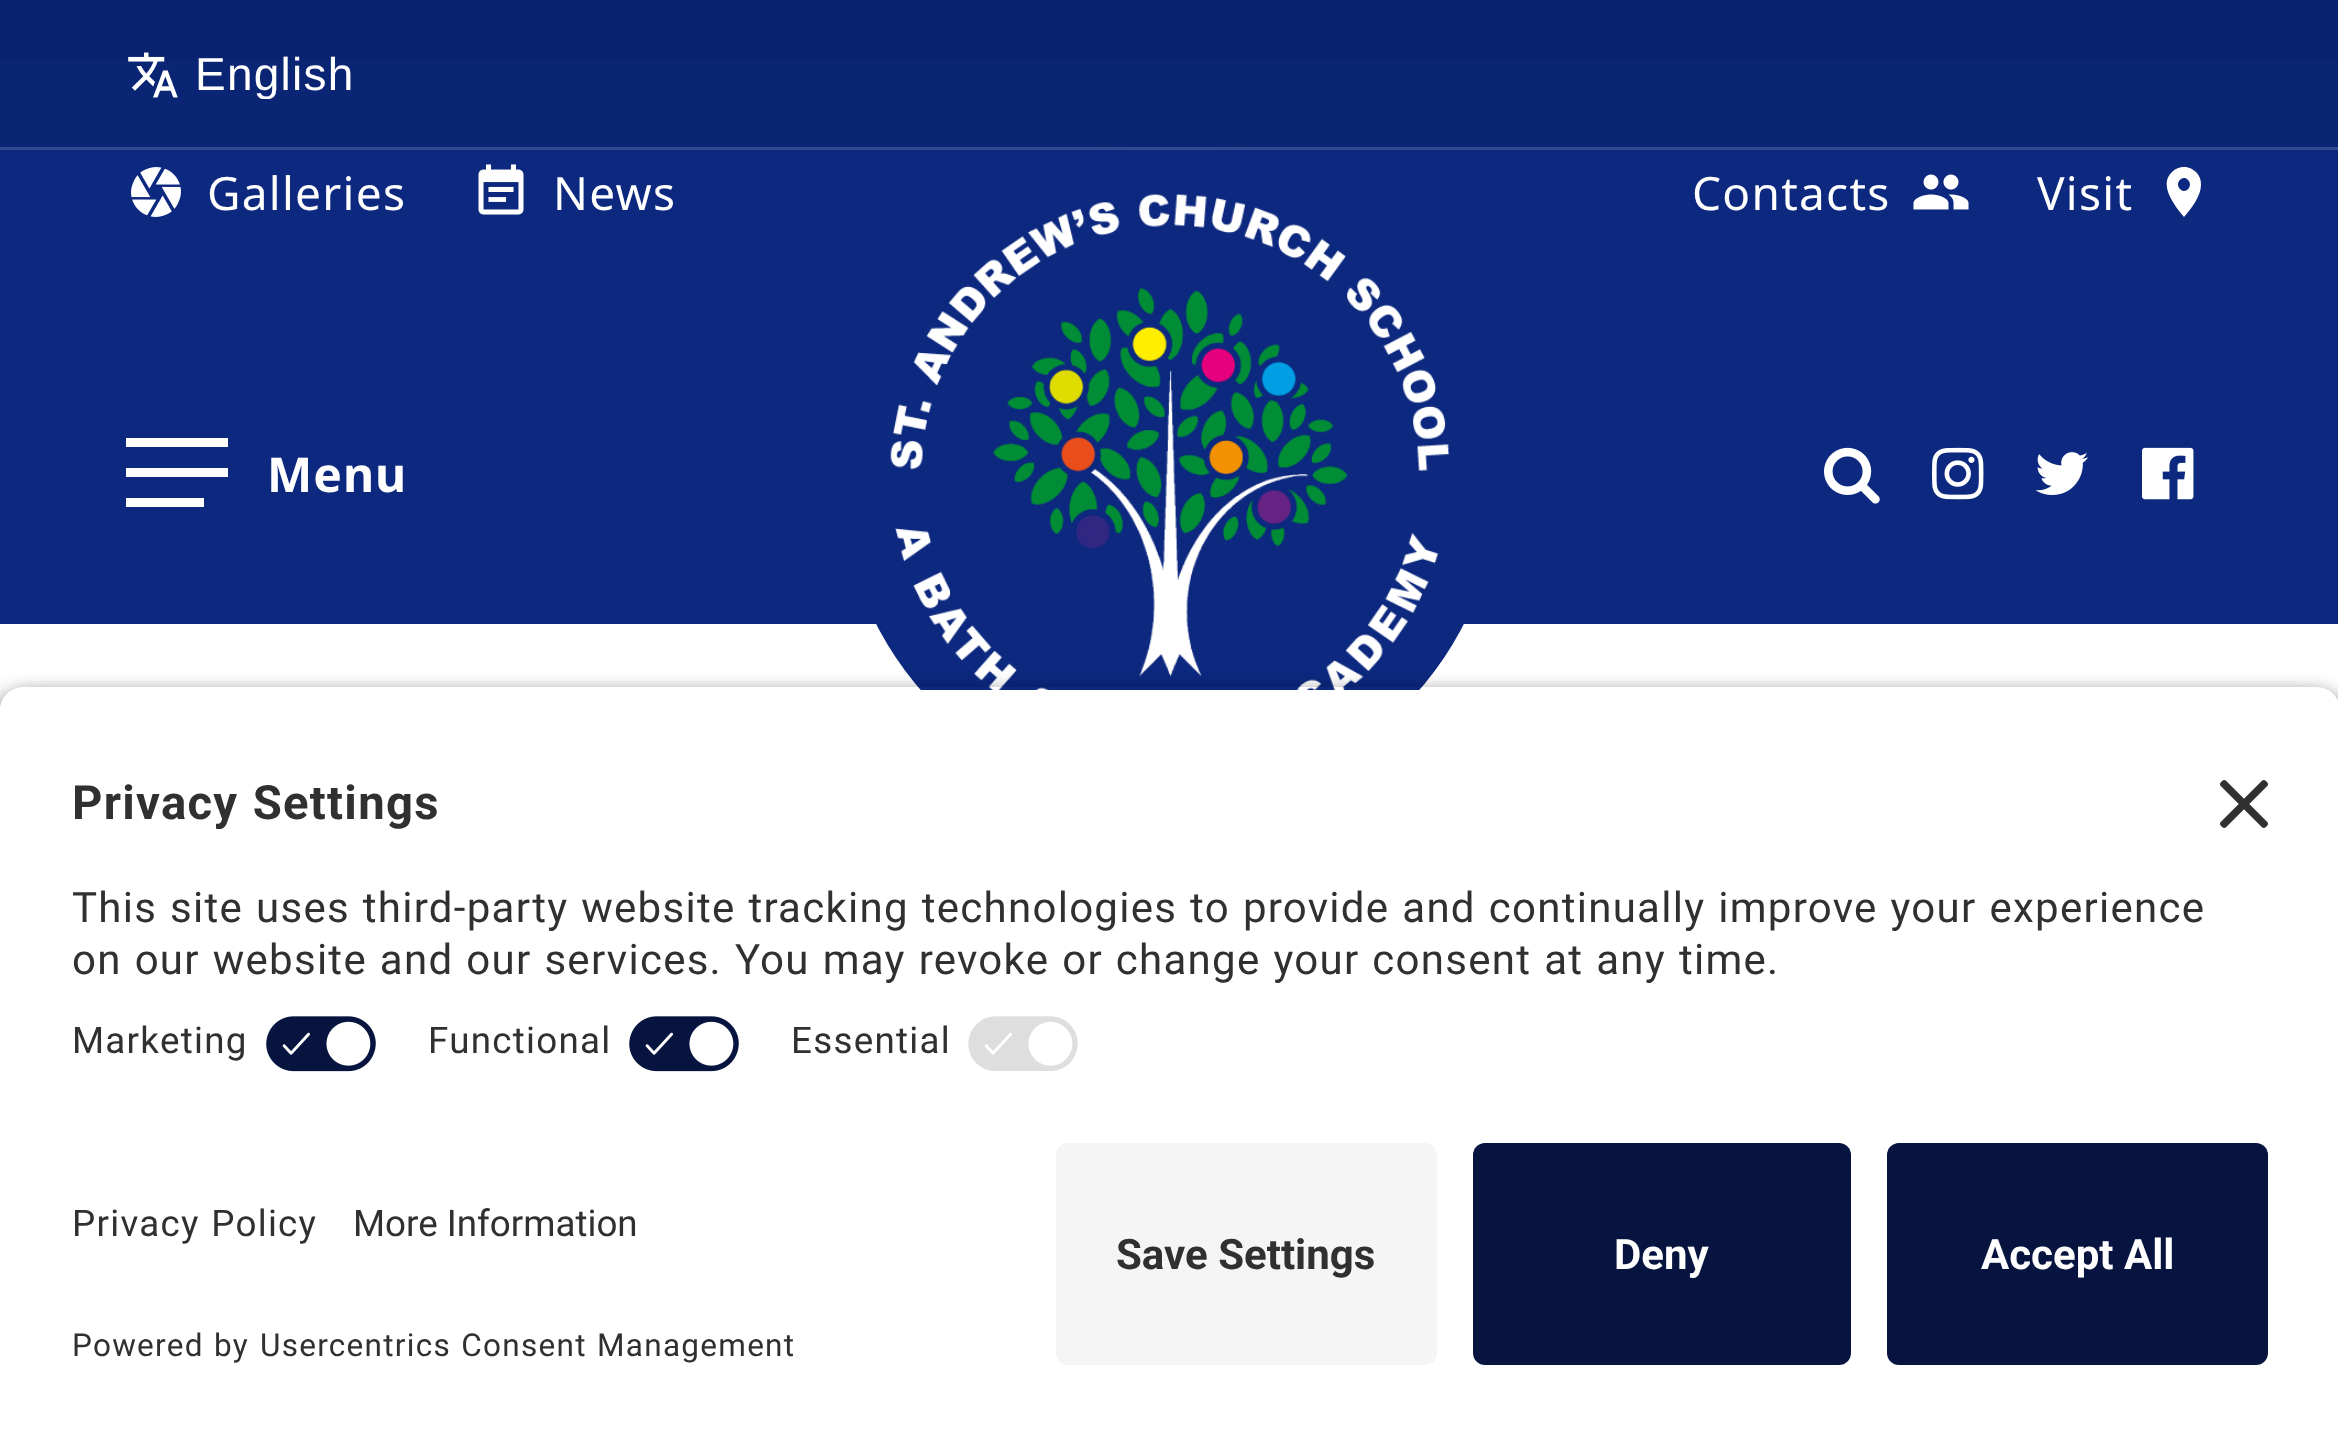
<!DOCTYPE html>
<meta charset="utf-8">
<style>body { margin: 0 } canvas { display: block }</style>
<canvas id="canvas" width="2338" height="1437"></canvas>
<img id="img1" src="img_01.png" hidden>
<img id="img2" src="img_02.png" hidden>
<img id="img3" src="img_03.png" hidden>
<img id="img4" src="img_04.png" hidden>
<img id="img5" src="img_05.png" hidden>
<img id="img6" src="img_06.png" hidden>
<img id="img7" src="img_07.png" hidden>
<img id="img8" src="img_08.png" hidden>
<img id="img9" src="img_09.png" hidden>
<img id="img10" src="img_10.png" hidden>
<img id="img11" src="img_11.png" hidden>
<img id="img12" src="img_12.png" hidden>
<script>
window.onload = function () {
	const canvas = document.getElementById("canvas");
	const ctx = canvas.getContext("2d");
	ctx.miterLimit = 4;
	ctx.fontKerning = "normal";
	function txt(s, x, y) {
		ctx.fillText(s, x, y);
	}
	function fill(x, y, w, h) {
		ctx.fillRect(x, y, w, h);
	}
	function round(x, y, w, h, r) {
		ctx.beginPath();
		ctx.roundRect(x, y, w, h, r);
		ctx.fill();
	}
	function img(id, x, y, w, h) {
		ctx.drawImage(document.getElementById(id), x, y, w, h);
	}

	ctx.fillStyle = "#061542";
	fill(0, 0, 2338, 1437);
	ctx.fillStyle = "rgba(12, 40, 127, 0.9)";
	fill(0, 0, 2338, 60);
	ctx.fillStyle = "#0C287F";
	fill(0, 60, 2338, 564);
	ctx.fillStyle = "#FFFFFF";
	fill(0, 624, 2338, 87);
	ctx.fillStyle = "#0C287F";
	ctx.beginPath();
	ctx.arc(1170, 474, 330, 0, Math.PI * 2);
	ctx.fill();
	ctx.fillStyle = "#304892";
	fill(0, 147, 2338, 3);
	ctx.fillStyle = "rgba(6, 20, 63, 0.15)";
	fill(0, 0, 2338, 147);
	img("img1", 128, 52, 50, 46);
	img("img2", 131, 167, 50, 50);
	img("img3", 478, 164, 46, 51);
	img("img4", 1913, 174, 56, 36);
	ctx.fillStyle = "#FFFFFF";
	ctx.beginPath();
	ctx.moveTo(2180, 189);
	ctx.bezierCurveTo(2185, 195, 2194, 186, 2188, 180);
	ctx.bezierCurveTo(2183, 174, 2174, 183, 2180, 189);
	ctx.closePath();
	ctx.moveTo(2172, 172);
	ctx.bezierCurveTo(2183, 161, 2202, 170, 2201, 185);
	ctx.bezierCurveTo(2201, 196, 2191, 209, 2184, 217);
	ctx.bezierCurveTo(2175, 206, 2158, 185, 2172, 172);
	ctx.closePath();
	ctx.fill();
	fill(126, 468, 102, 9);
	fill(126, 438, 102, 9);
	fill(126, 498, 78, 9);
	img("img5", 890, 194, 560, 496);
	img("img6", 1824, 447, 56, 57);
	img("img7", 1932, 447, 52, 53);
	img("img8", 2035, 452, 54, 43);
	img("img9", 2142, 447, 52, 53);
	ctx.save();
	ctx.beginPath();
	ctx.moveTo(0, 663);
	ctx.lineTo(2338, 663);
	ctx.lineTo(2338, 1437);
	ctx.lineTo(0, 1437);
	ctx.closePath();
	ctx.moveTo(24, 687);
	ctx.lineTo(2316, 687);
	ctx.bezierCurveTo(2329.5, 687, 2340, 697.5, 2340, 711);
	ctx.lineTo(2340, 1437);
	ctx.lineTo(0, 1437);
	ctx.lineTo(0, 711);
	ctx.bezierCurveTo(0, 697.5, 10.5, 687, 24, 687);
	ctx.closePath();
	ctx.clip("evenodd");
	ctx.fillStyle = "rgba(0, 0, 0, 0.8)";
	ctx.filter = "blur(10.5px)";
	ctx.beginPath();
	ctx.roundRect(0, 696, 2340, 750, 24);
	ctx.fill();
	ctx.filter = "none";
	ctx.restore();
	ctx.save();
	ctx.beginPath();
	ctx.moveTo(24, 687);
	ctx.lineTo(2316, 687);
	ctx.bezierCurveTo(2329.5, 687, 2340, 697.5, 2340, 711);
	ctx.lineTo(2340, 1119);
	ctx.lineTo(0, 1119);
	ctx.lineTo(0, 711);
	ctx.bezierCurveTo(0, 697.5, 10.5, 687, 24, 687);
	ctx.closePath();
	ctx.clip();
	fill(0, 690, 2338, 429);
	fill(0, 690, 2338, 309);
	ctx.restore();
	img("img10", 2220, 780, 48, 48);
	img("img11", 266, 1016, 110, 56);
	img("img11", 629, 1016, 110, 56);
	img("img12", 968, 1016, 110, 55);
	fill(0, 1119, 2338, 318);
	ctx.fillStyle = "#F5F5F5";
	round(1056, 1143, 381, 222, 12);
	ctx.fillStyle = "#06143F";
	round(1473, 1143, 378, 222, 12);
	round(1887, 1143, 381, 222, 12);
	ctx.save();
	ctx.beginPath();
	ctx.rect(195, 48, 450, 51);
	ctx.clip();
	ctx.letterSpacing = "1.25px";
	ctx.font = "46px Liberation Sans";
	ctx.fillStyle = "#FFFFFF";
	txt("English", 195, 90);
	ctx.restore();
	ctx.letterSpacing = "1.27px";
	ctx.font = "46px Noto Sans";
	ctx.fillStyle = "#FFFFFF";
	txt("Galleries", 207, 210);
	txt("News", 553, 210);
	txt("Contacts", 1692, 210);
	txt("Visit", 2037, 210);
	ctx.letterSpacing = "1px";
	ctx.font = "bold 48px Noto Sans";
	txt("Menu", 267, 492);
	ctx.letterSpacing = "1.27px";
	ctx.wordSpacing = "1.25px";
	ctx.font = "bold 47.25px Roboto";
	ctx.fillStyle = "#303030";
	txt("Privacy Settings", 72, 819);
	ctx.font = "42px Roboto";
	txt("This site uses third-party website tracking technologies to provide and continually improve your experience", 72, 922);
	txt("on our website and our services. You may revoke or change your consent at any time.", 72, 974);
	ctx.wordSpacing = "0px";
	ctx.font = "36.75px Roboto";
	txt("Marketing", 72, 1053);
	txt("Functional", 428, 1053);
	txt("Essential", 791, 1053);
	ctx.wordSpacing = "1.25px";
	txt("Privacy Policy", 72, 1236);
	ctx.letterSpacing = "0px";
	ctx.wordSpacing = "0px";
	txt("More Information", 353, 1236);
	ctx.letterSpacing = "1.27px";
	ctx.wordSpacing = "1.25px";
	ctx.font = "31.5px Roboto";
	txt("Powered by", 72, 1356);
	txt("Usercentrics Consent Management", 260, 1356);
	ctx.letterSpacing = "0px";
	ctx.wordSpacing = "0px";
	ctx.font = "bold 42px Roboto";
	txt("Save Settings", 1116, 1269);
	ctx.fillStyle = "#FFFFFF";
	txt("Deny", 1614, 1269);
	txt("Accept All", 1981, 1269);
};
</script>
